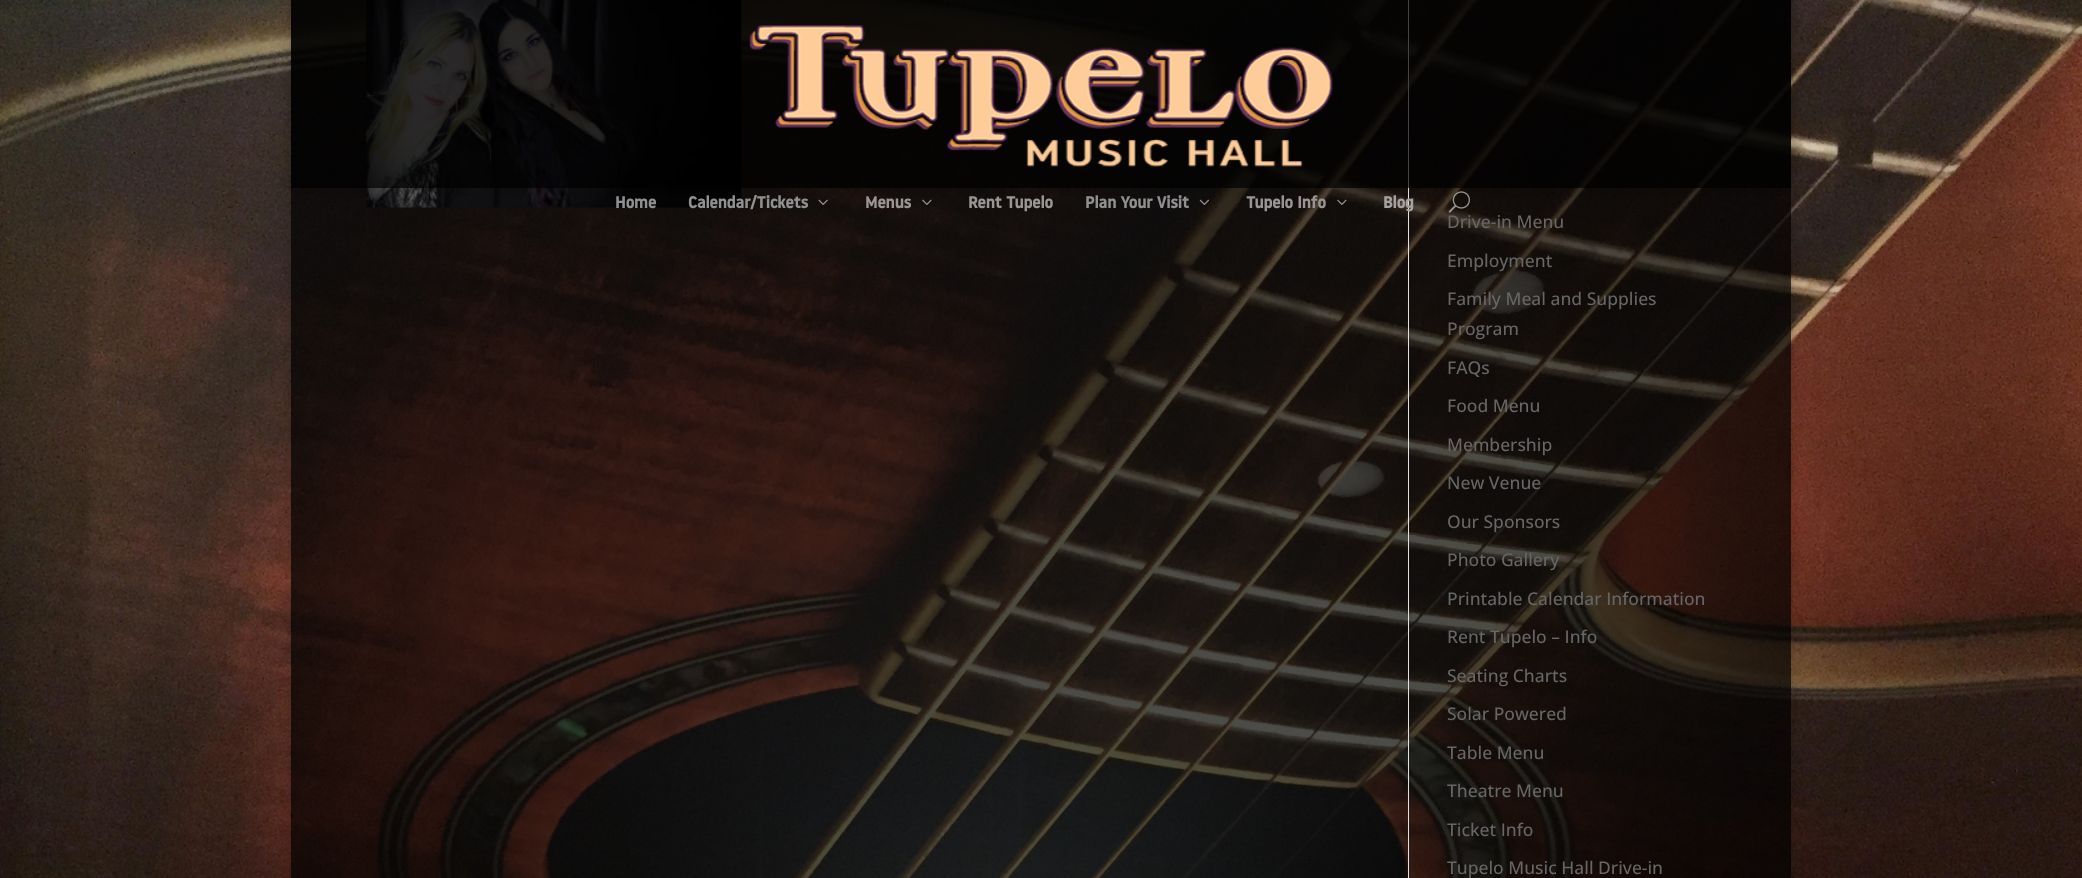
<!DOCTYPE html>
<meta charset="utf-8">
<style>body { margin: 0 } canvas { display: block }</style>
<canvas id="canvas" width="2082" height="878"></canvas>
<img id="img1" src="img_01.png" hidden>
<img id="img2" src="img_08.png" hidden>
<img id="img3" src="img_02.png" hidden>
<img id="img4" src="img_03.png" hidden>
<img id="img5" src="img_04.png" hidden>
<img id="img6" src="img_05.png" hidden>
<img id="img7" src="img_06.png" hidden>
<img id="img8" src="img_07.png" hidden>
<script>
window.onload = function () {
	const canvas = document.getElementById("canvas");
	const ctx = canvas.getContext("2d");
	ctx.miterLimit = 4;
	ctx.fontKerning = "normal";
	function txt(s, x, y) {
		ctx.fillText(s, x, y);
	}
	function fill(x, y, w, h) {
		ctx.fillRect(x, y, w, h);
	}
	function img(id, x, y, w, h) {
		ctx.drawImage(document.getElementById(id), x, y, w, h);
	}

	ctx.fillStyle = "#FFFFFF";
	fill(0, 0, 2082, 878);
	img("img1", 0, 0, 2082, 878);
	ctx.save();
	ctx.beginPath();
	ctx.moveTo(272, 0);
	ctx.lineTo(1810, 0);
	ctx.lineTo(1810, 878);
	ctx.lineTo(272, 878);
	ctx.closePath();
	ctx.moveTo(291, -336);
	ctx.lineTo(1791, -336);
	ctx.lineTo(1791, 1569);
	ctx.lineTo(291, 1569);
	ctx.closePath();
	ctx.clip("evenodd");
	ctx.fillStyle = "rgba(0, 0, 0, 0.2)";
	ctx.filter = "blur(6px)";
	ctx.beginPath();
	ctx.rect(291, -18, 1500, 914);
	ctx.fill();
	ctx.filter = "none";
	ctx.restore();
	ctx.fillStyle = "rgba(0, 0, 0, 0.7)";
	fill(291, 0, 1500, 878);
	ctx.fillStyle = "#E2E2E2";
	fill(1408, 0, 1, 878);
	img("img2", 366, 0, 376, 208);
	ctx.save();
	ctx.beginPath();
	ctx.moveTo(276, 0);
	ctx.lineTo(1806, 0);
	ctx.lineTo(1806, 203);
	ctx.lineTo(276, 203);
	ctx.closePath();
	ctx.moveTo(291, 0);
	ctx.lineTo(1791, 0);
	ctx.lineTo(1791, 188);
	ctx.lineTo(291, 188);
	ctx.closePath();
	ctx.clip("evenodd");
	ctx.fillStyle = "rgba(0, 0, 0, 0.1)";
	ctx.filter = "blur(4.5px)";
	ctx.beginPath();
	ctx.rect(291, 0, 1500, 188);
	ctx.fill();
	ctx.filter = "none";
	ctx.restore();
	ctx.fillStyle = "rgba(0, 0, 0, 0.7)";
	fill(291, 0, 1500, 188);
	img("img3", 749, 25, 584, 142);
	img("img4", 818, 199, 10, 6);
	img("img5", 922, 199, 10, 6);
	img("img6", 1199, 199, 10, 6);
	img("img7", 1337, 199, 10, 6);
	img("img8", 1448, 191, 22, 22);
	ctx.font = "bold 16.25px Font";
	ctx.fillStyle = "#909090";
	txt("Home", 615, 208);
	txt("Calendar/Tickets", 688, 208);
	ctx.fillStyle = "#989594";
	txt("Menus", 865, 208);
	txt("Rent Tupelo", 968, 208);
	ctx.fillStyle = "#909090";
	txt("Plan Your Visit", 1085, 208);
	ctx.fillStyle = "#989594";
	txt("Tupelo Info", 1246, 208);
	ctx.fillStyle = "#A5A29F";
	txt("Blog", 1383, 208);
	ctx.font = "500 17.5px Open Sans";
	ctx.fillStyle = "#666666";
	txt("Drive-in Menu", 1447, 228);
	txt("Employment", 1447, 267);
	txt("Family Meal and Supplies", 1447, 305);
	txt("Program", 1447, 335);
	txt("FAQs", 1447, 374);
	txt("Food Menu", 1447, 412);
	txt("Membership", 1447, 451);
	txt("New Venue", 1447, 489);
	txt("Our Sponsors", 1447, 528);
	txt("Photo Gallery", 1447, 566);
	txt("Printable Calendar Information", 1447, 605);
	txt("Rent Tupelo – Info", 1447, 643);
	txt("Seating Charts", 1447, 682);
	txt("Solar Powered", 1447, 720);
	txt("Table Menu", 1447, 759);
	txt("Theatre Menu", 1447, 797);
	txt("Ticket Info", 1447, 836);
	txt("Tupelo Music Hall Drive-in", 1447, 874);
};
</script>
